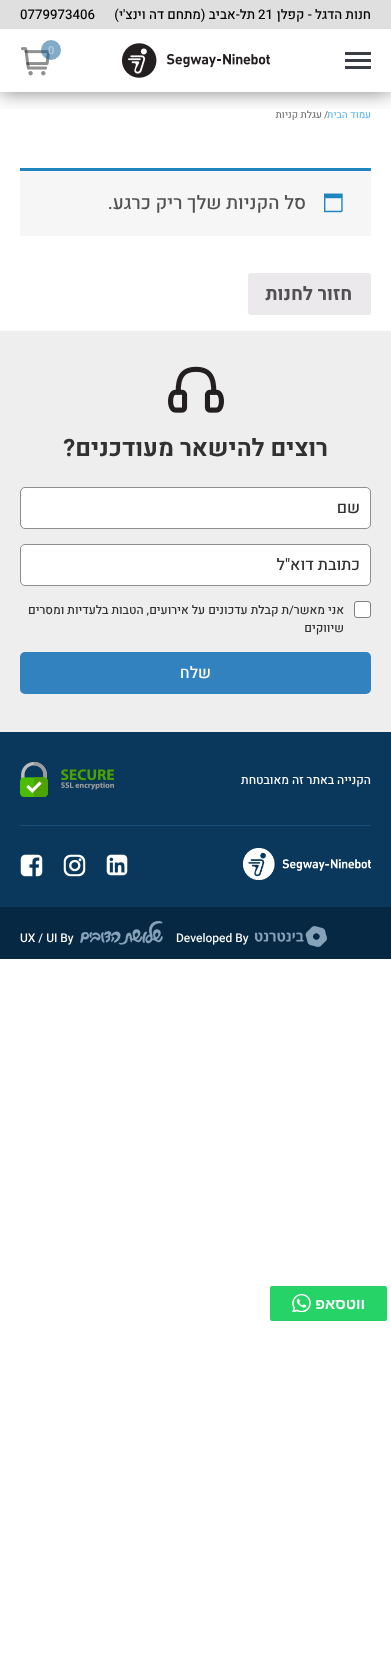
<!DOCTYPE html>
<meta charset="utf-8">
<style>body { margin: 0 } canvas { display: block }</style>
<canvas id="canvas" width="391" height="1659"></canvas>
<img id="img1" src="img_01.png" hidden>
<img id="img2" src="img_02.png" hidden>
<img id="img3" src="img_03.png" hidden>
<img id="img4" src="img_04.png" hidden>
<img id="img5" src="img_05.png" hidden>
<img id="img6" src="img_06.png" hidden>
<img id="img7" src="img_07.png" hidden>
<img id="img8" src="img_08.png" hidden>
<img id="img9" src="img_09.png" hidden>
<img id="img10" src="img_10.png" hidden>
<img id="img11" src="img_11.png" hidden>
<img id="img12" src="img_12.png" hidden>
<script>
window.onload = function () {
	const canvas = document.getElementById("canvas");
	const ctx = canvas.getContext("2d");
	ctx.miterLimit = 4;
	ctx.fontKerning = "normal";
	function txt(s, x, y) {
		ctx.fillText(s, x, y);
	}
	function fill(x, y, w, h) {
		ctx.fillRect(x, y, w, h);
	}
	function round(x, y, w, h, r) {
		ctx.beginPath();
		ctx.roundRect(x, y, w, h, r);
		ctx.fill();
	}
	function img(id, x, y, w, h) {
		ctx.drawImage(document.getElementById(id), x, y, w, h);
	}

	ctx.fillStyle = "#FFFFFF";
	fill(0, 0, 391, 1659);
	ctx.save();
	ctx.beginPath();
	ctx.rect(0, 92, 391, 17);
	ctx.clip();
	ctx.fillStyle = "rgba(0, 0, 0, 0.5)";
	ctx.filter = "blur(10px)";
	ctx.beginPath();
	ctx.rect(0, 0, 391, 92);
	ctx.fill();
	ctx.filter = "none";
	ctx.restore();
	ctx.fillStyle = "#E0DFDF";
	fill(0, 0, 391, 29);
	img("img1", 122, 43, 149, 35);
	img("img2", 21, 47, 29, 29);
	ctx.fillStyle = "rgba(4, 88, 148, 0.5)";
	ctx.beginPath();
	ctx.arc(51, 50, 10, 0, Math.PI * 2);
	ctx.fill();
	ctx.fillStyle = "#3B3D44";
	fill(345, 52, 26, 3);
	fill(345, 59, 26, 3);
	fill(345, 66, 26, 3);
	ctx.fillStyle = "#F7F6F7";
	fill(20, 171, 351, 65);
	ctx.fillStyle = "#1E85BE";
	fill(20, 168, 351, 3);
	img("img3", 324, 193, 19, 20);
	ctx.fillStyle = "#EBE9EB";
	round(248, 273, 123, 42, 3);
	ctx.fillStyle = "#EEEEEE";
	fill(0, 331, 391, 401);
	img("img4", 168, 366, 56, 47);
	ctx.fillStyle = "#FFFFFF";
	ctx.beginPath();
	ctx.roundRect(20.5, 487.5, 350, 41, 4.5);
	ctx.fill();
	ctx.strokeStyle = "#8E8E8E";
	ctx.stroke();
	ctx.beginPath();
	ctx.roundRect(20.5, 544.5, 350, 41, 4.5);
	ctx.fill();
	ctx.stroke();
	ctx.beginPath();
	ctx.roundRect(354.5, 601.5, 16, 16, 2.5);
	ctx.fill();
	ctx.strokeStyle = "#818181";
	ctx.stroke();
	ctx.fillStyle = "#3282BF";
	round(20, 652, 351, 42, 5);
	ctx.fillStyle = "#09385C";
	fill(0, 732, 391, 175);
	img("img5", 20, 762, 94, 35);
	ctx.fillStyle = "#174D76";
	fill(20, 825, 351, 1);
	img("img6", 106, 854, 22, 22);
	img("img7", 63, 854, 23, 23);
	img("img8", 20, 854, 23, 23);
	img("img9", 243, 848, 128, 32);
	ctx.fillStyle = "#062842";
	fill(0, 907, 391, 52);
	img("img10", 255, 926, 72, 21);
	img("img11", 80, 921, 83, 24);
	ctx.fillStyle = "#25D366";
	round(270, 1286, 117, 35, 2);
	img("img12", 292, 1294, 19, 18);
	ctx.direction = "rtl";
	ctx.font = "500 13.25px Heebo";
	ctx.fillStyle = "#000000";
	txt("חנות הדגל - קפלן", 371, 19);
	ctx.direction = "ltr";
	txt("21", 258, 19);
	ctx.direction = "rtl";
	txt("תל-אביב (מתחם דה וינצ'י)", 255, 19);
	ctx.direction = "ltr";
	txt("0779973406", 20, 19);
	ctx.font = "500 11px Heebo";
	ctx.fillStyle = "#BCD1E0";
	txt("0", 48, 54);
	ctx.direction = "rtl";
	ctx.font = "500 10px Heebo";
	ctx.fillStyle = "#62B9FB";
	txt("עמוד הבית", 371, 118);
	ctx.direction = "ltr";
	ctx.fillStyle = "#777777";
	txt("/", 324, 118);
	ctx.direction = "rtl";
	txt("עגלת קניות", 322, 118);
	ctx.font = "500 18.75px Heebo";
	ctx.fillStyle = "#515151";
	txt("סל הקניות שלך ריק כרגע.", 306, 209);
	ctx.font = "bold 18.75px Heebo";
	txt("חזור לחנות", 352, 300);
	ctx.font = "bold 24px Heebo";
	ctx.fillStyle = "#313131";
	txt("רוצים להישאר מעודכנים?", 328, 456);
	ctx.font = "500 16px Heebo";
	txt("שם", 360, 513);
	txt("כתובת דוא\"ל", 360, 570);
	ctx.font = "500 12px Heebo";
	txt("אני מאשר/ת קבלת עדכונים על אירועים, הטבות בלעדיות ומסרים", 344, 614);
	txt("שיווקים", 344, 632);
	ctx.font = "500 16px Heebo";
	ctx.fillStyle = "#FFFFFF";
	txt("שלח", 211, 678);
	ctx.font = "500 12px Heebo";
	txt("הקנייה באתר זה", 371, 784);
	txt("מאובטחת", 289, 784);
	ctx.direction = "ltr";
	txt("Developed By", 176, 942);
	txt("UX / UI By", 20, 942);
	ctx.direction = "rtl";
	ctx.font = "bold 15px Liberation Sans";
	txt("ווטסאפ", 365, 1309);
};
</script>
